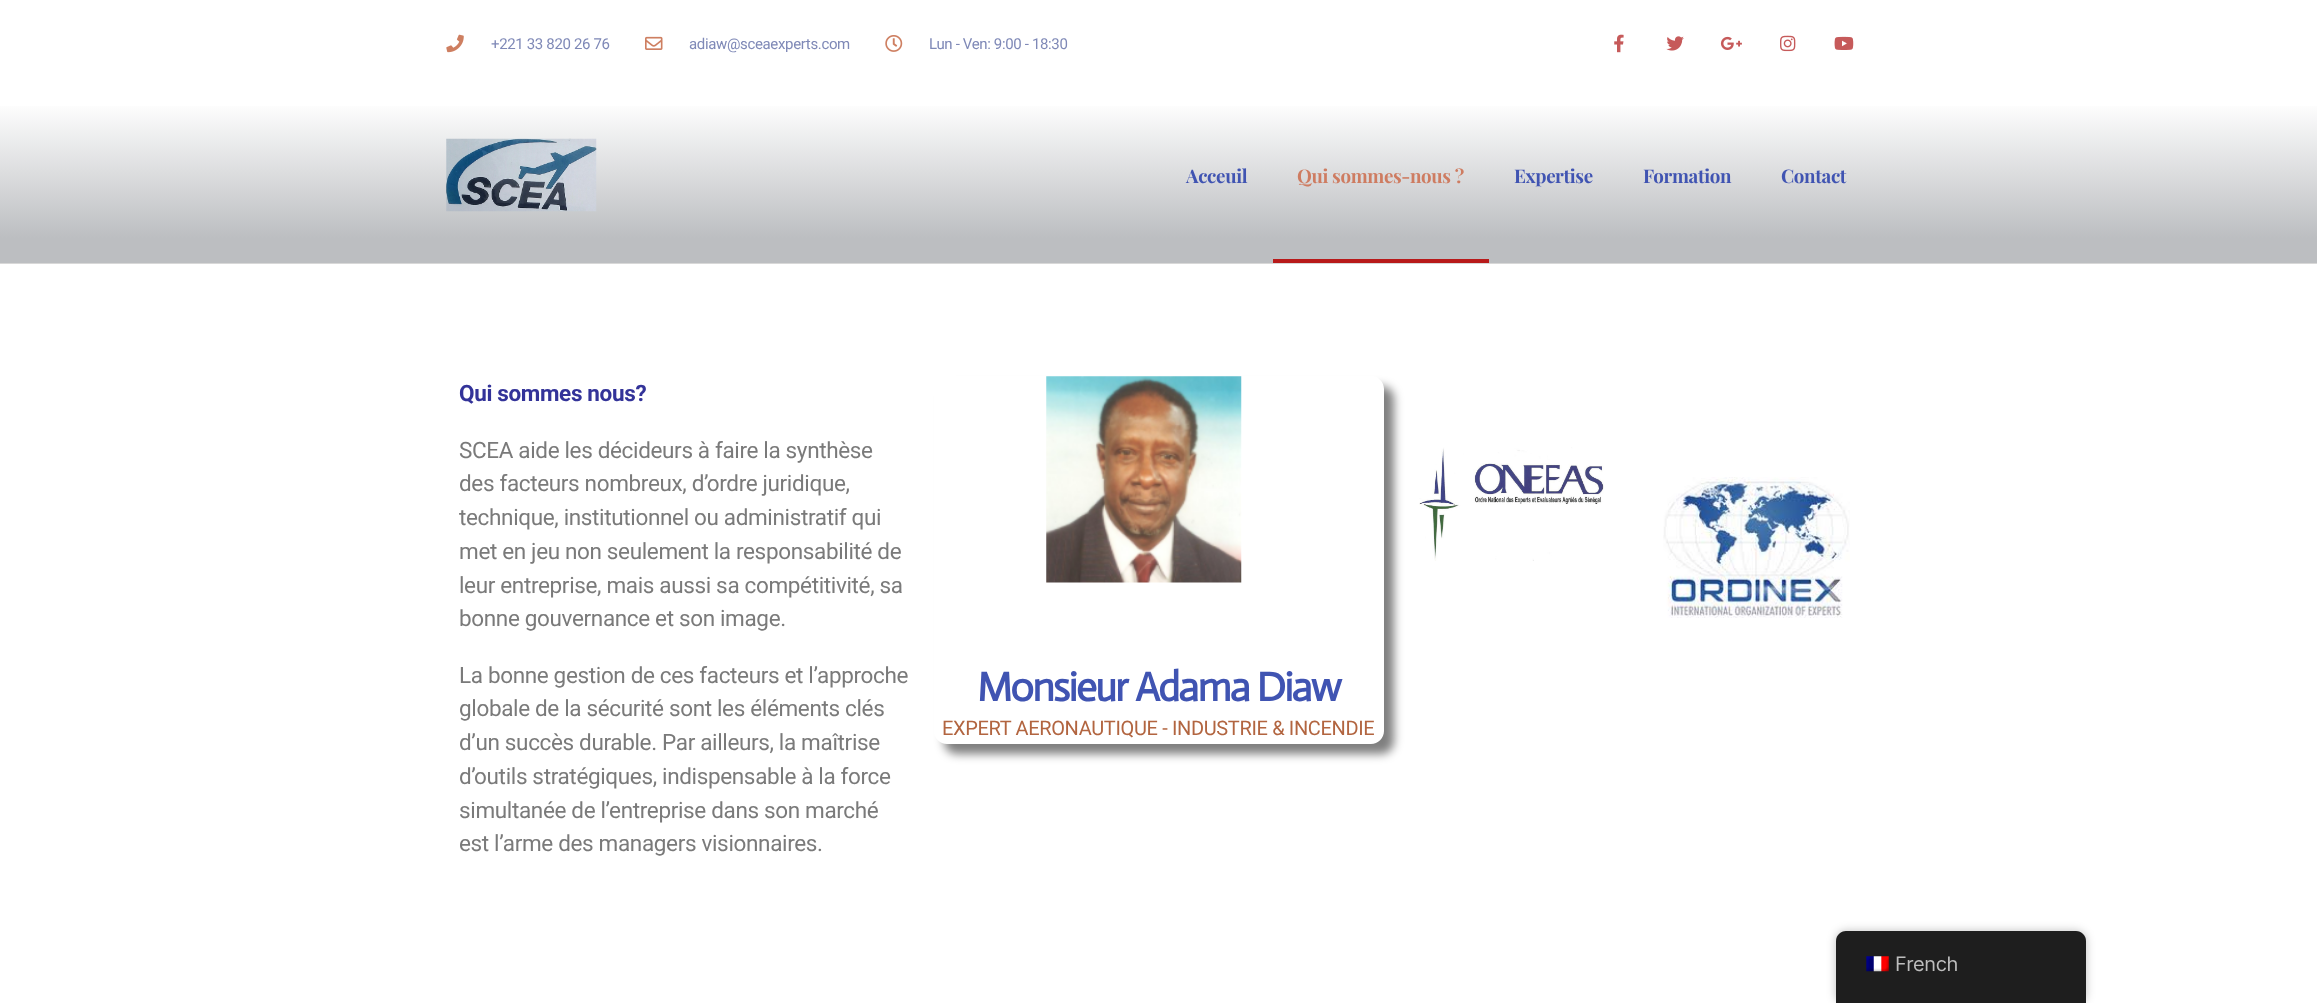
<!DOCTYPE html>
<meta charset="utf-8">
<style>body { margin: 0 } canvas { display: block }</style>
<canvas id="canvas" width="2317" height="1003"></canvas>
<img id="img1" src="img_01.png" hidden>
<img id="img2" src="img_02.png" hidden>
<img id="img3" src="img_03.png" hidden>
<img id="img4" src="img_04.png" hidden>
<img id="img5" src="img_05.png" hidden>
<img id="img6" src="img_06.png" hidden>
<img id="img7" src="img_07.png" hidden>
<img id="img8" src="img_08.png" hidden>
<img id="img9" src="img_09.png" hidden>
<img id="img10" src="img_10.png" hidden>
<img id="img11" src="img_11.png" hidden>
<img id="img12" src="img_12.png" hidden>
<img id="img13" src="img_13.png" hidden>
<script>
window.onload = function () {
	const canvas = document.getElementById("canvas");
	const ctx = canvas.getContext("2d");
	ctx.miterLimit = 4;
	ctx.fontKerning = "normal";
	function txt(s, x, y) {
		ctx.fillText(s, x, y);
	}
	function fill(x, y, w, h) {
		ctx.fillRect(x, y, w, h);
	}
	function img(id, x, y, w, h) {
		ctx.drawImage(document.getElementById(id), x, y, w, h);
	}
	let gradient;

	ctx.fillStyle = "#FFFFFF";
	fill(0, 0, 2317, 1003);
	img("img1", 446, 34, 18, 19);
	img("img2", 645, 36, 18, 14);
	img("img3", 885, 35, 18, 17);
	img("img4", 1614, 34, 10, 19);
	img("img5", 1666, 36, 18, 15);
	img("img6", 1720, 36, 22, 14);
	img("img7", 1780, 35, 16, 17);
	img("img8", 1834, 36, 20, 14);
	gradient = ctx.createLinearGradient(1159, 87, 1159, 263);
	gradient.addColorStop(0.08, "#FFFFFF");
	gradient.addColorStop(0.86, "#BCBEC1");
	ctx.fillStyle = gradient;
	fill(0, 106, 2317, 157);
	ctx.fillStyle = "#D8D8D8";
	fill(0, 263, 2317, 1);
	img("img9", 446, 138, 151, 74);
	ctx.fillStyle = "#B81A1A";
	fill(1273, 259, 216, 4);
	img("img10", 1419, 447, 185, 114);
	img("img11", 1663, 477, 187, 141);
	ctx.save();
	ctx.beginPath();
	ctx.moveTo(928, 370);
	ctx.lineTo(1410, 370);
	ctx.lineTo(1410, 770);
	ctx.lineTo(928, 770);
	ctx.closePath();
	ctx.moveTo(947, 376);
	ctx.lineTo(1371, 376);
	ctx.bezierCurveTo(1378, 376, 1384, 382, 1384, 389);
	ctx.lineTo(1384, 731);
	ctx.bezierCurveTo(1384, 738, 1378, 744, 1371, 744);
	ctx.lineTo(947, 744);
	ctx.bezierCurveTo(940, 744, 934, 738, 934, 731);
	ctx.lineTo(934, 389);
	ctx.bezierCurveTo(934, 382, 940, 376, 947, 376);
	ctx.closePath();
	ctx.clip("evenodd");
	ctx.fillStyle = "rgba(0, 0, 0, 0.5)";
	ctx.filter = "blur(5px)";
	ctx.beginPath();
	ctx.roundRect(944, 386, 450, 368, 13);
	ctx.fill();
	ctx.filter = "none";
	ctx.restore();
	img("img12", 1046, 376, 196, 207);
	ctx.fillStyle = "rgba(0, 0, 0, 0.25)";
	ctx.filter = "blur(5px)";
	ctx.beginPath();
	ctx.roundRect(1836, 931, 250, 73, 10);
	ctx.fill();
	ctx.filter = "none";
	ctx.fillStyle = "#1E1E1E";
	ctx.beginPath();
	ctx.moveTo(1846, 931);
	ctx.lineTo(2076, 931);
	ctx.bezierCurveTo(2081.5, 931, 2086, 935.5, 2086, 941);
	ctx.lineTo(2086, 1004);
	ctx.lineTo(1836, 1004);
	ctx.lineTo(1836, 941);
	ctx.bezierCurveTo(1836, 935.5, 1840.5, 931, 1846, 931);
	ctx.closePath();
	ctx.fill();
	img("img13", 1866, 956, 23, 16);
	ctx.letterSpacing = "-0.35px";
	ctx.font = "15px Roboto";
	ctx.fillStyle = "#7F89B7";
	txt("+221 33 820 26 76", 491, 49);
	txt("adiaw@sceaexperts.com", 689, 49);
	txt("Lun - Ven: 9:00 - 18:30", 929, 49);
	ctx.font = "bold 18.75px Playfair Display";
	ctx.fillStyle = "#4054B2";
	txt("Acceuil", 1186, 183);
	ctx.fillStyle = "#CE7C61";
	txt("Qui sommes-nous ?", 1297, 183);
	ctx.fillStyle = "#4054B2";
	txt("Expertise", 1514, 183);
	txt("Formation", 1643, 183);
	txt("Contact", 1781, 183);
	ctx.font = "bold 22.5px Roboto";
	ctx.fillStyle = "#333399";
	txt("Qui sommes nous?", 459, 401);
	ctx.font = "22.5px Roboto";
	ctx.fillStyle = "#7A7A7A";
	txt("SCEA aide les décideurs à faire la synthèse", 459, 458);
	txt("des facteurs nombreux, d’ordre juridique,", 459, 491);
	txt("technique, institutionnel ou administratif qui", 459, 525);
	txt("met en jeu non seulement la responsabilité de", 459, 559);
	txt("leur entreprise, mais aussi sa compétitivité, sa", 459, 593);
	txt("bonne gouvernance et son image.", 459, 626);
	txt("La bonne gestion de ces facteurs et l’approche", 459, 683);
	txt("globale de la sécurité sont les éléments clés", 459, 716);
	txt("d’un succès durable. Par ailleurs, la maîtrise", 459, 750);
	txt("d’outils stratégiques, indispensable à la force", 459, 784);
	txt("simultanée de l’entreprise dans son marché", 459, 818);
	txt("est l’arme des managers visionnaires.", 459, 851);
	ctx.letterSpacing = "-1.75px";
	ctx.font = "bold 41.25px Actor";
	ctx.fillStyle = "#4054B2";
	txt("Monsieur Adama Diaw", 977, 701);
	ctx.letterSpacing = "-0.35px";
	ctx.font = "20px Roboto";
	ctx.fillStyle = "#B26540";
	txt("EXPERT AERONAUTIQUE - INDUSTRIE & INCENDIE", 942, 735);
	ctx.font = "20px Inter";
	ctx.fillStyle = "#BDBDBD";
	txt("French", 1895, 971);
};
</script>
